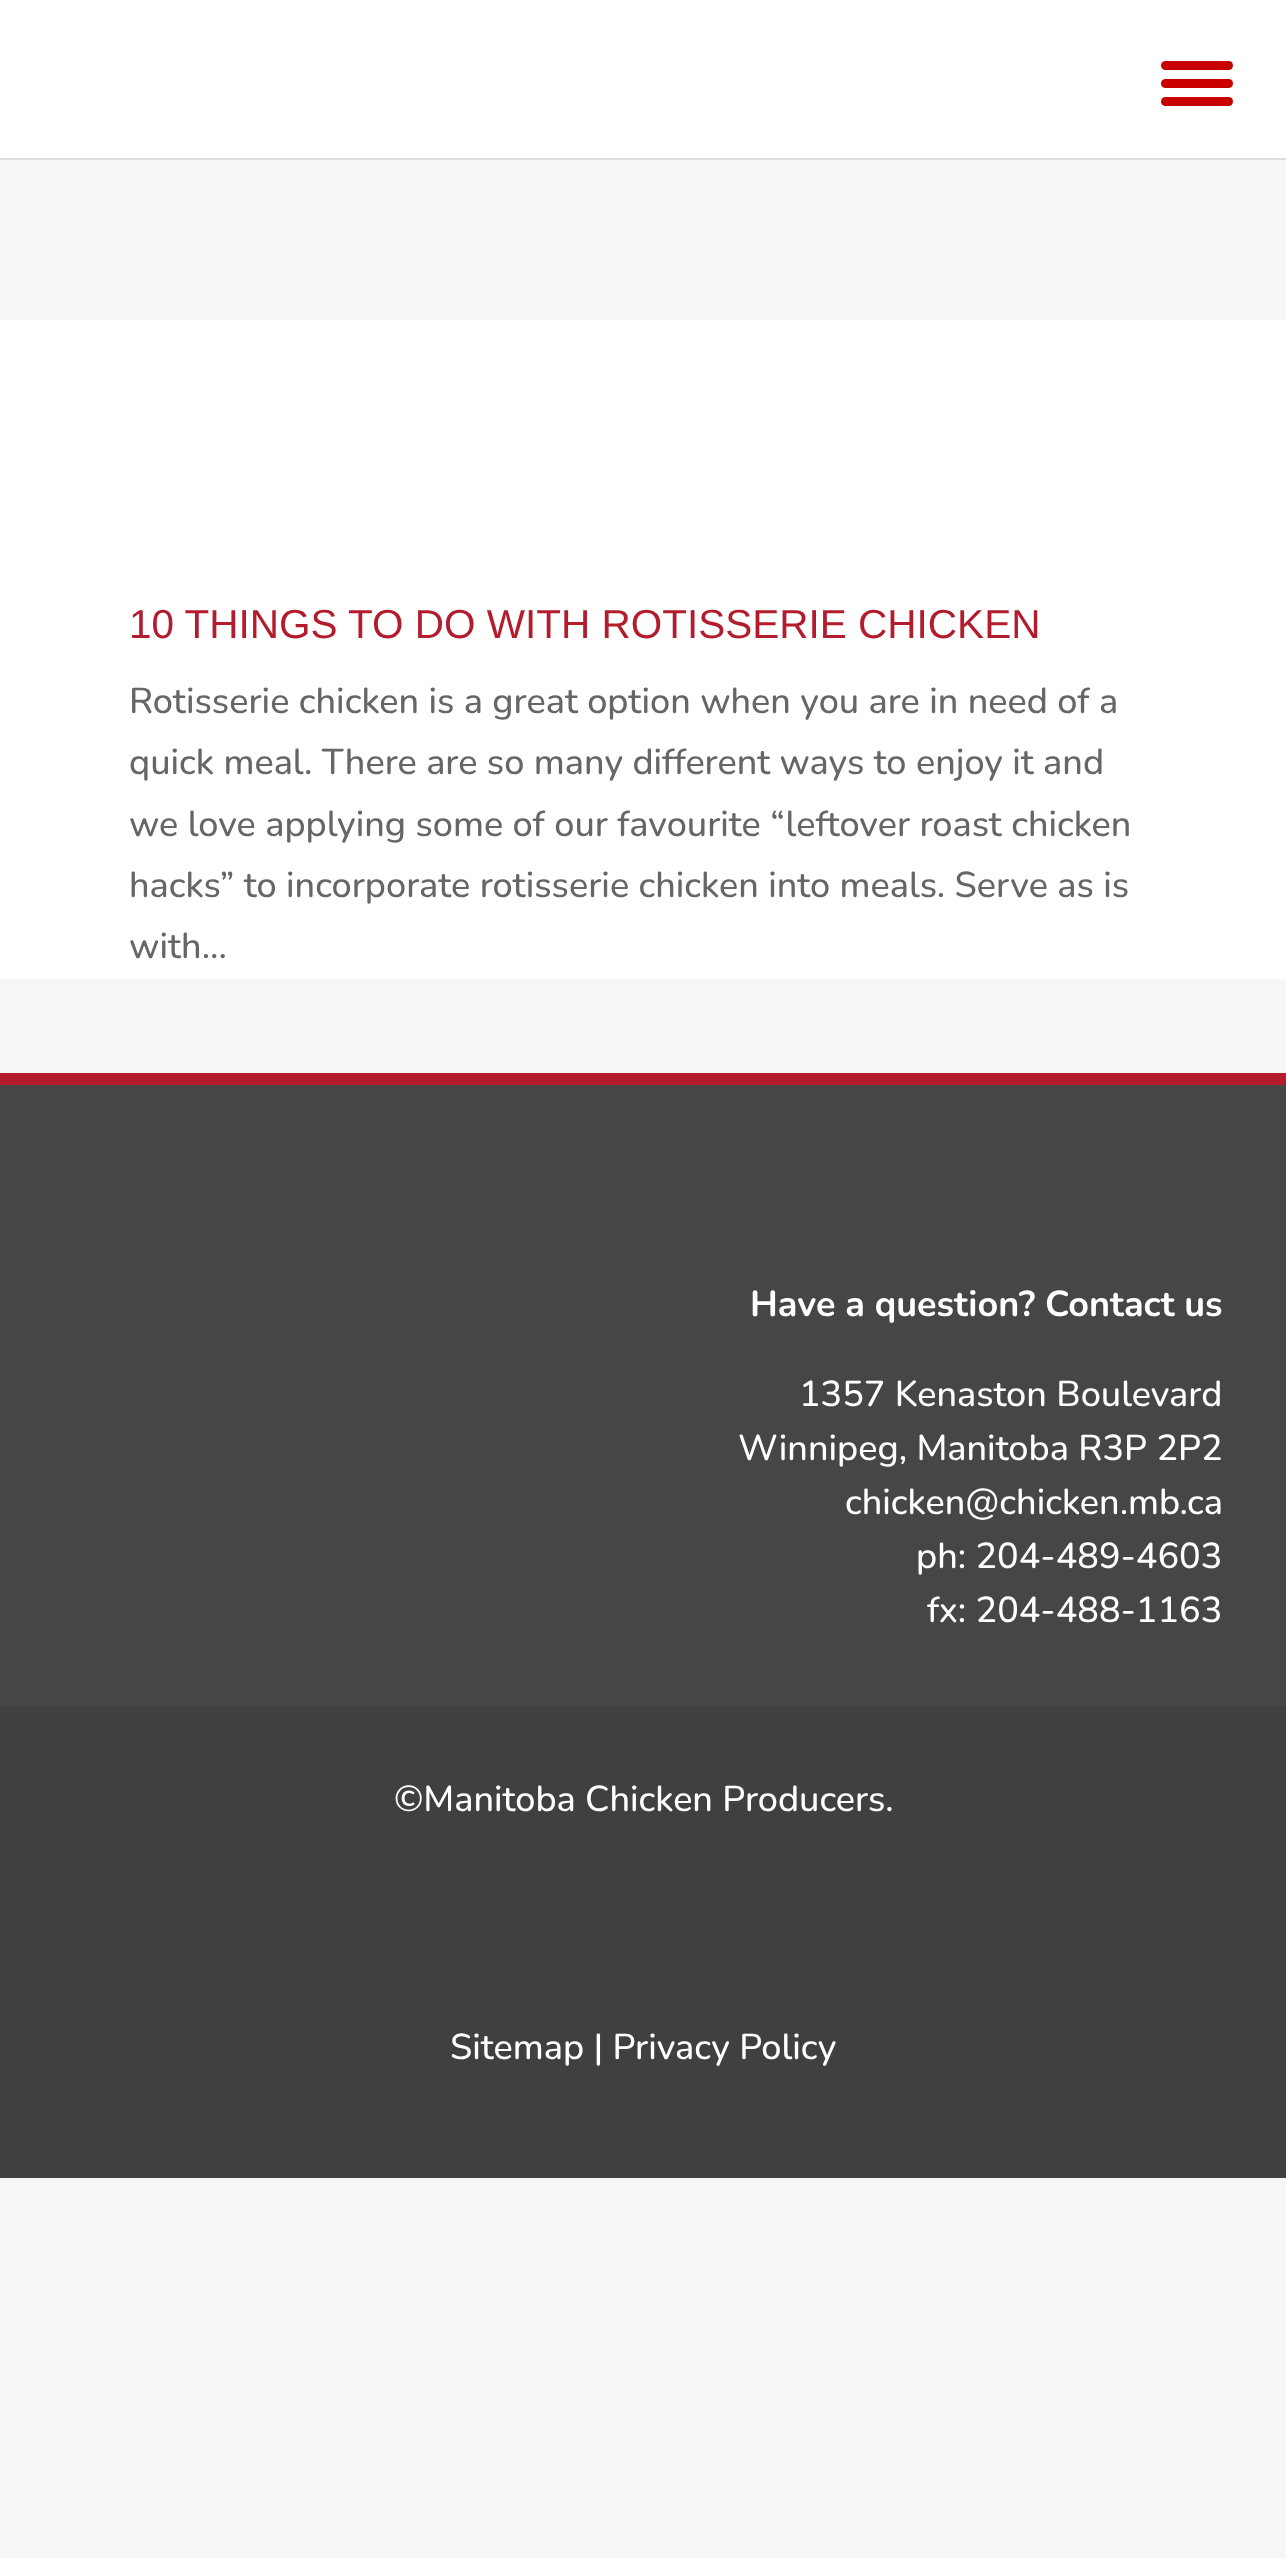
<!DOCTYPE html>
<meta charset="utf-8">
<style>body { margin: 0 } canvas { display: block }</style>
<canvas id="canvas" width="1286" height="2558"></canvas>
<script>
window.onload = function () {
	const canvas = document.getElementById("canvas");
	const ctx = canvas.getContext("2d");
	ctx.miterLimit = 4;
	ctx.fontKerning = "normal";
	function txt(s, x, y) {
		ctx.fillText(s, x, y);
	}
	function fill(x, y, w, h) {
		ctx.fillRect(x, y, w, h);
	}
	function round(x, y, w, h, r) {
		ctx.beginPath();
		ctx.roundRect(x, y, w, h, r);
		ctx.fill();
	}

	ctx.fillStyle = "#F6F6F6";
	fill(0, 0, 1286, 2558);
	ctx.fillStyle = "#DDDDDD";
	fill(0, 158, 1286, 2);
	ctx.fillStyle = "#FFFFFF";
	fill(0, 0, 1286, 158);
	ctx.fillStyle = "#C80000";
	round(1161, 61, 72, 9, 4.5);
	round(1161, 79, 72, 9, 4.5);
	round(1161, 97, 72, 9, 4.5);
	ctx.fillStyle = "#FFFFFF";
	fill(0, 320, 1286, 659);
	ctx.fillStyle = "#464648";
	fill(0, 1085, 1286, 621);
	ctx.fillStyle = "#B31C2D";
	fill(0, 1073, 1286, 12);
	ctx.fillStyle = "#404041";
	fill(0, 1706, 1286, 472);
	ctx.font = "40.5px Liberation Sans";
	ctx.fillStyle = "#B31C2D";
	txt("10 THINGS TO DO WITH ROTISSERIE CHICKEN", 129, 638);
	ctx.font = "200 36px Nunito";
	ctx.fillStyle = "#666666";
	txt("Rotisserie chicken is a great option when you are in need of a", 129, 713);
	txt("quick meal. There are so many different ways to enjoy it and", 129, 774);
	txt("we love applying some of our favourite “leftover roast chicken", 129, 836);
	txt("hacks” to incorporate rotisserie chicken into meals. Serve as is", 129, 897);
	txt("with...", 129, 958);
	ctx.font = "200 36px 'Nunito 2'";
	ctx.fillStyle = "#FFFFFF";
	txt("Have a question? Contact us", 750, 1316);
	ctx.font = "200 36px Nunito";
	txt("1357 Kenaston Boulevard", 799, 1406);
	txt("Winnipeg, Manitoba R3P 2P2", 738, 1460);
	txt("chicken@chicken.mb.ca", 845, 1514);
	txt("ph: 204-489-4603", 916, 1568);
	txt("fx: 204-488-1163", 927, 1622);
	txt("©Manitoba Chicken Producers.", 394, 1811);
	txt("Sitemap | Privacy Policy", 450, 2059);
};
</script>
